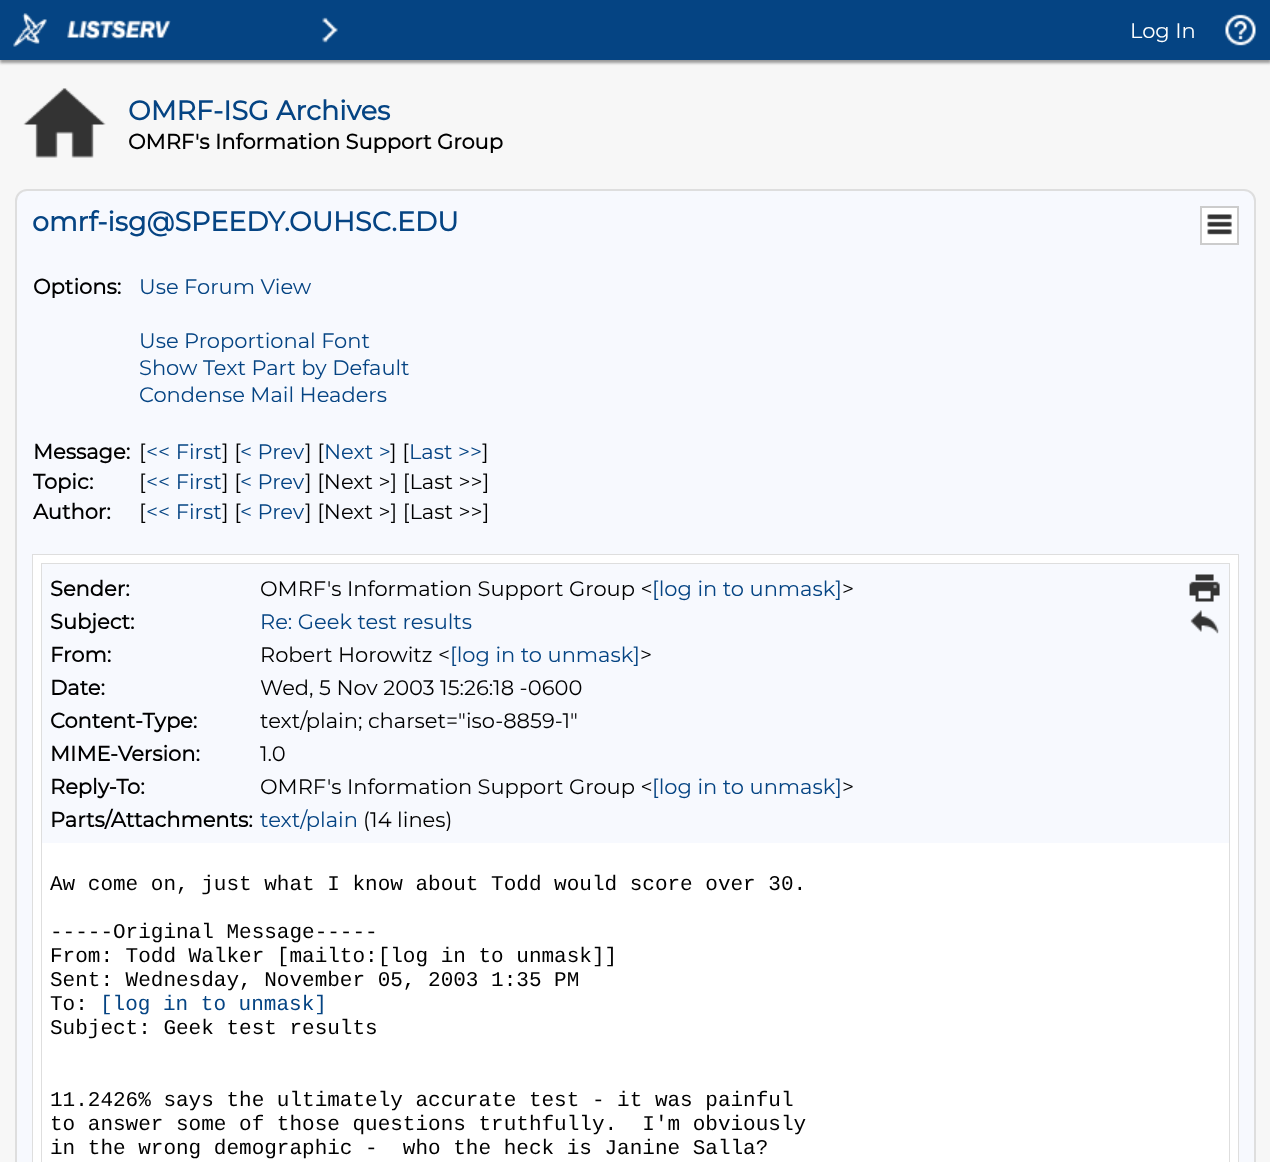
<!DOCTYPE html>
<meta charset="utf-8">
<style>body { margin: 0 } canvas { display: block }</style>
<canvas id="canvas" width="1270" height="1162"></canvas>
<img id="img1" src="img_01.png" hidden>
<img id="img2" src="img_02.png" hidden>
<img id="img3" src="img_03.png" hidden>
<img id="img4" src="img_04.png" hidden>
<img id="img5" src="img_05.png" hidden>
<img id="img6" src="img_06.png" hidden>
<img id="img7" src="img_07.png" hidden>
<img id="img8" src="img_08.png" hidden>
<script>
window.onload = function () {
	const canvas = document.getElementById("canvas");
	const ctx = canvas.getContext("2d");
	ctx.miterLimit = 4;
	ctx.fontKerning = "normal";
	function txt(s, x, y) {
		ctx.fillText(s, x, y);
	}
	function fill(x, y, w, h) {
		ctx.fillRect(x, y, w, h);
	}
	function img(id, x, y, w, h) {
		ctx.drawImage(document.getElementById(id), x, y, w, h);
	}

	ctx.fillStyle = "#F7F7F7";
	fill(0, 0, 1270, 1162);
	ctx.fillStyle = "#999999";
	ctx.filter = "blur(1.5px)";
	ctx.beginPath();
	ctx.rect(0, 3, 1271, 60);
	ctx.fill();
	ctx.filter = "none";
	ctx.fillStyle = "#054483";
	fill(0, 0, 1270, 60);
	img("img1", 13, 13, 34, 34);
	img("img2", 67, 20, 104, 20);
	img("img3", 322, 17, 16, 26);
	img("img4", 1225, 14, 31, 32);
	img("img5", 23, 88, 83, 70);
	ctx.fillStyle = "#F7F9FE";
	ctx.beginPath();
	ctx.roundRect(16, 190, 1239, 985, 11);
	ctx.fill();
	ctx.strokeStyle = "#DEDEDE";
	ctx.lineWidth = 2;
	ctx.stroke();
	ctx.fillStyle = "#FFFFFF";
	ctx.beginPath();
	ctx.rect(1201, 207, 37, 37);
	ctx.fill();
	ctx.strokeStyle = "#CCCCCC";
	ctx.stroke();
	img("img6", 1207, 214, 25, 21);
	ctx.strokeStyle = "#DEDEDE";
	ctx.strokeRect(33, 555, 1205, 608);
	fill(33, 555, 1205, 607);
	ctx.strokeRect(42, 564, 1187, 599);
	ctx.fillStyle = "#F7F9FE";
	fill(42, 564, 1187, 279);
	img("img7", 1189, 574, 31, 28);
	img("img8", 1190, 610, 29, 24);
	ctx.fillStyle = "#FFFFFF";
	fill(42, 843, 1187, 319);
	ctx.font = "100 21px Montserrat";
	txt("Log In", 1130, 38);
	ctx.font = "bold 27px Montserrat";
	ctx.fillStyle = "#054483";
	txt("OMRF-ISG Archives", 128, 120);
	ctx.font = "bold 21px Montserrat";
	ctx.fillStyle = "#000000";
	txt("OMRF's Information Support Group", 128, 149);
	ctx.font = "bold 27px Montserrat";
	ctx.fillStyle = "#054483";
	txt("omrf-isg@SPEEDY.OUHSC.EDU", 32, 231);
	ctx.font = "bold 21px Montserrat";
	ctx.fillStyle = "#000000";
	txt("Options:", 33, 294);
	ctx.font = "100 21px Montserrat";
	ctx.fillStyle = "#054483";
	txt("Use Forum View", 139, 294);
	txt("Use Proportional Font", 139, 348);
	txt("Show Text Part by Default", 139, 375);
	txt("Condense Mail Headers", 139, 402);
	ctx.font = "bold 21px Montserrat";
	ctx.fillStyle = "#000000";
	txt("Message:", 33, 459);
	ctx.font = "100 21px Montserrat";
	txt("[", 139, 459);
	ctx.fillStyle = "#054483";
	txt("<< First", 146, 459);
	ctx.fillStyle = "#000000";
	txt("] [", 222, 459);
	ctx.fillStyle = "#054483";
	txt("< Prev", 240, 459);
	ctx.fillStyle = "#000000";
	txt("] [", 305, 459);
	ctx.fillStyle = "#054483";
	txt("Next >", 324, 459);
	ctx.fillStyle = "#000000";
	txt("] [", 390, 459);
	ctx.fillStyle = "#054483";
	txt("Last >>", 409, 459);
	ctx.fillStyle = "#000000";
	txt("]", 482, 459);
	ctx.font = "bold 21px Montserrat";
	txt("Topic:", 33, 489);
	ctx.font = "100 21px Montserrat";
	txt("[", 139, 489);
	ctx.fillStyle = "#054483";
	txt("<< First", 146, 489);
	ctx.fillStyle = "#000000";
	txt("] [", 222, 489);
	ctx.fillStyle = "#054483";
	txt("< Prev", 240, 489);
	ctx.fillStyle = "#000000";
	txt("] [Next >] [Last >>]", 305, 489);
	ctx.font = "bold 21px Montserrat";
	txt("Author:", 33, 519);
	ctx.font = "100 21px Montserrat";
	txt("[", 139, 519);
	ctx.fillStyle = "#054483";
	txt("<< First", 146, 519);
	ctx.fillStyle = "#000000";
	txt("] [", 222, 519);
	ctx.fillStyle = "#054483";
	txt("< Prev", 240, 519);
	ctx.fillStyle = "#000000";
	txt("] [Next >] [Last >>]", 305, 519);
	ctx.font = "bold 21px Montserrat";
	txt("Sender:", 50, 596);
	ctx.font = "100 21px Montserrat";
	txt("OMRF's Information Support Group <", 260, 596);
	ctx.fillStyle = "#054483";
	txt("[log in to unmask]", 652, 596);
	ctx.fillStyle = "#000000";
	txt(">", 842, 596);
	ctx.font = "bold 21px Montserrat";
	txt("Subject:", 50, 629);
	ctx.font = "100 21px Montserrat";
	ctx.fillStyle = "#054483";
	txt("Re: Geek test results", 260, 629);
	ctx.font = "bold 21px Montserrat";
	ctx.fillStyle = "#000000";
	txt("From:", 50, 662);
	ctx.font = "100 21px Montserrat";
	txt("Robert Horowitz <", 260, 662);
	ctx.fillStyle = "#054483";
	txt("[log in to unmask]", 450, 662);
	ctx.fillStyle = "#000000";
	txt(">", 640, 662);
	ctx.font = "bold 21px Montserrat";
	txt("Date:", 50, 695);
	ctx.font = "100 21px Montserrat";
	txt("Wed, 5 Nov 2003 15:26:18 -0600", 260, 695);
	ctx.font = "bold 21px Montserrat";
	txt("Content-Type:", 50, 728);
	ctx.font = "100 21px Montserrat";
	txt("text/plain; charset=\"iso-8859-1\"", 260, 728);
	ctx.font = "bold 21px Montserrat";
	txt("MIME-Version:", 50, 761);
	ctx.font = "100 21px Montserrat";
	txt("1.0", 260, 761);
	ctx.font = "bold 21px Montserrat";
	txt("Reply-To:", 50, 794);
	ctx.font = "100 21px Montserrat";
	txt("OMRF's Information Support Group <", 260, 794);
	ctx.fillStyle = "#054483";
	txt("[log in to unmask]", 652, 794);
	ctx.fillStyle = "#000000";
	txt(">", 842, 794);
	ctx.font = "bold 21px Montserrat";
	txt("Parts/Attachments:", 50, 827);
	ctx.font = "100 21px Montserrat";
	ctx.fillStyle = "#054483";
	txt("text/plain", 260, 827);
	ctx.fillStyle = "#000000";
	txt("(14 lines)", 363, 827);
	ctx.font = "21px Liberation Mono";
	txt("Aw come on, just what I know about Todd would score over 30.", 50, 890);
	txt("-----Original Message-----", 50, 938);
	txt("From: Todd Walker [mailto:[log in to unmask]]", 50, 962);
	txt("Sent: Wednesday, November 05, 2003 1:35 PM", 50, 986);
	txt("To:", 50, 1010);
	ctx.fillStyle = "#054483";
	txt("[log in to unmask]", 100, 1010);
	ctx.fillStyle = "#000000";
	txt("Subject: Geek test results", 50, 1034);
	txt("11.2426% says the ultimately accurate test - it was painful", 50, 1106);
	txt("to answer some of those questions truthfully.  I'm obviously", 50, 1130);
	txt("in the wrong demographic -  who the heck is Janine Salla?", 50, 1154);
};
</script>
